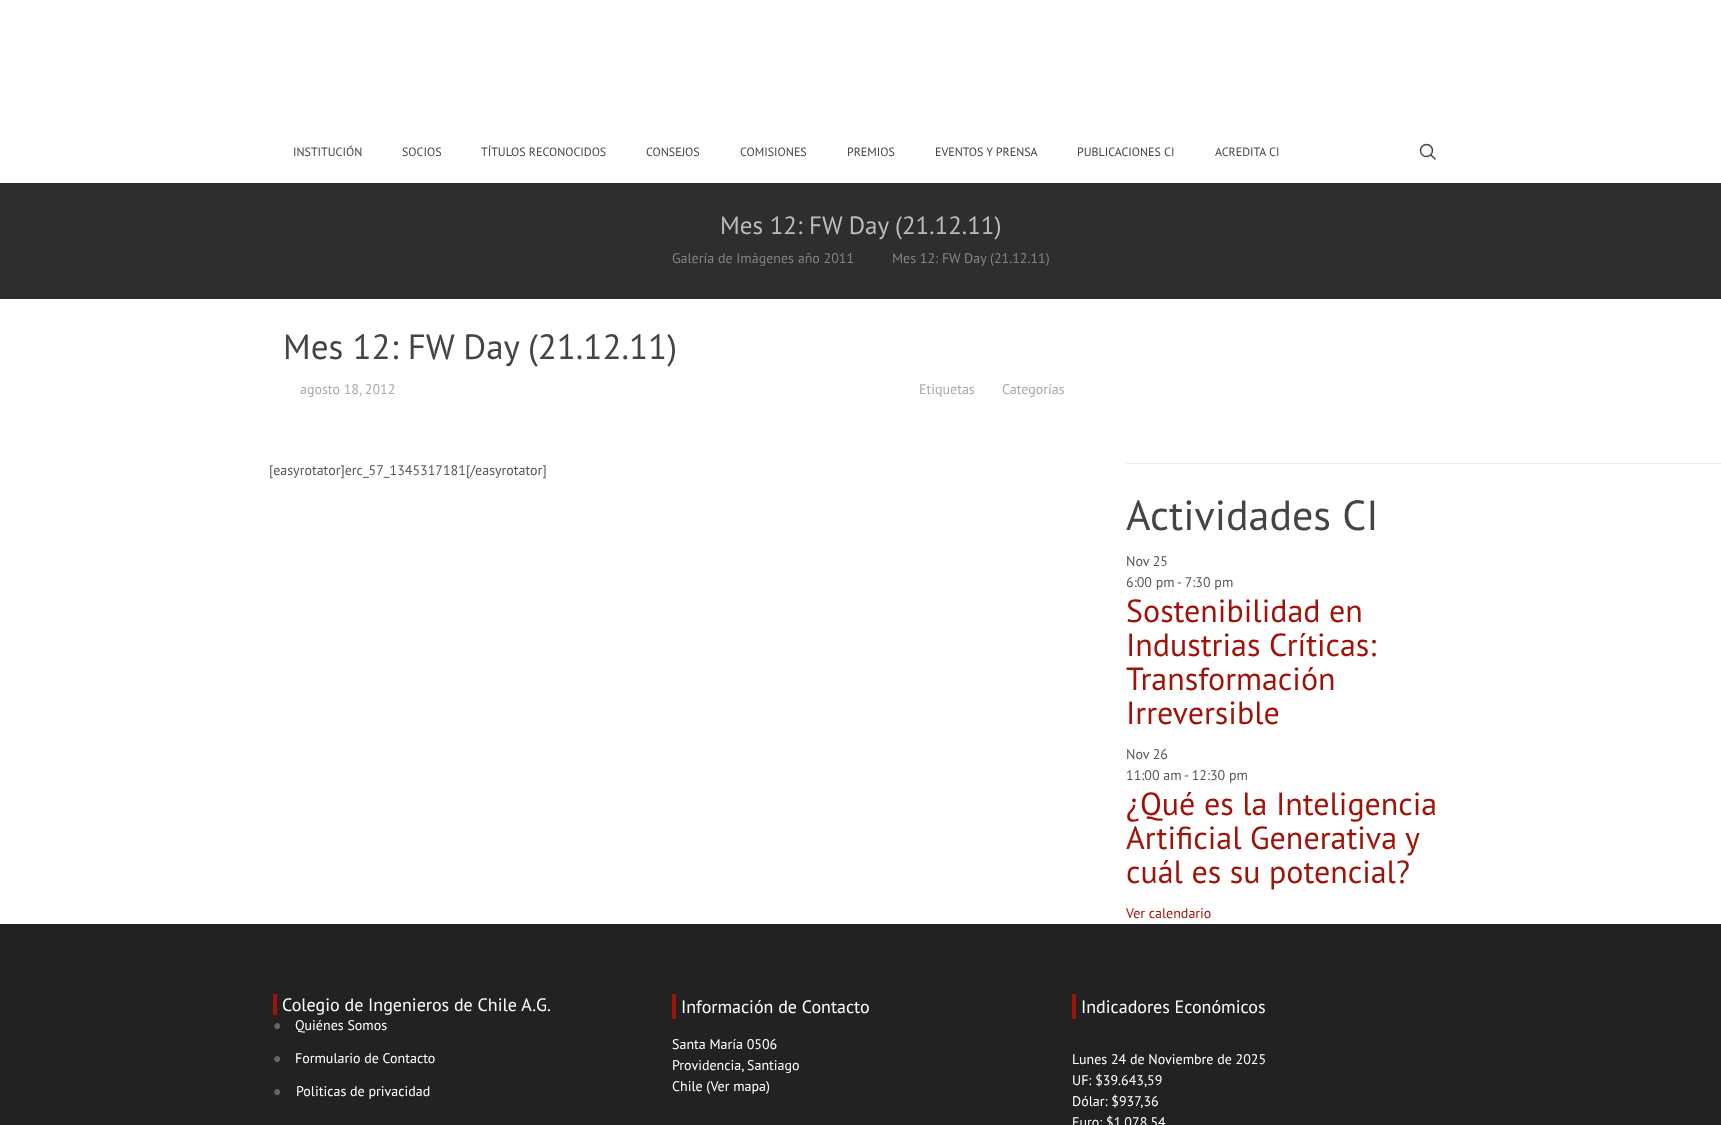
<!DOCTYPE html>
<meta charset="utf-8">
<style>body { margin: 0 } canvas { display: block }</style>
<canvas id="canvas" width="1721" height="1125"></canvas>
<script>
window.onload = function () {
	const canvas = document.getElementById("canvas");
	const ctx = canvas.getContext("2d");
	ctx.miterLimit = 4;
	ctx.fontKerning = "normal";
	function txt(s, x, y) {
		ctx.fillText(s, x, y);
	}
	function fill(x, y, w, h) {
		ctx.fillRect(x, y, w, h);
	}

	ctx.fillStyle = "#FFFFFF";
	fill(0, 0, 1721, 1125);
	ctx.beginPath();
	ctx.arc(1426.5, 150.5, 6, 0, Math.PI * 2);
	ctx.strokeStyle = "#444444";
	ctx.lineWidth = 1.5;
	ctx.stroke();
	ctx.beginPath();
	ctx.moveTo(1430.5, 154.5);
	ctx.lineTo(1435.5, 159.5);
	ctx.stroke();
	ctx.fillStyle = "#2E2E2E";
	fill(0, 183, 1721, 116);
	ctx.fillStyle = "#EBEBEB";
	fill(1126, 463, 595, 1);
	ctx.fillStyle = "#222222";
	fill(0, 924, 1721, 201);
	ctx.fillStyle = "#A01408";
	fill(273, 994, 4, 21);
	fill(672, 994, 4, 25);
	fill(1072, 994, 4, 25);
	ctx.font = "12px PT Sans";
	ctx.fillStyle = "#444444";
	txt("INSTITUCIÓN", 293, 156);
	txt("SOCIOS", 402, 156);
	txt("TÍTULOS RECONOCIDOS", 481, 156);
	txt("CONSEJOS", 646, 156);
	txt("COMISIONES", 740, 156);
	txt("PREMIOS", 847, 156);
	txt("EVENTOS Y PRENSA", 935, 156);
	txt("PUBLICACIONES CI", 1077, 156);
	txt("ACREDITA CI", 1215, 156);
	ctx.font = "25px PT Sans";
	ctx.fillStyle = "#BBBBBB";
	txt("Mes 12: FW Day (21.12.11)", 720, 234);
	ctx.font = "14px PT Sans";
	ctx.fillStyle = "#838383";
	txt("Galería de Imágenes año 2011", 672, 263);
	txt("Mes 12: FW Day (21.12.11)", 892, 263);
	ctx.font = "35px PT Sans";
	ctx.fillStyle = "#444444";
	txt("Mes 12: FW Day (21.12.11)", 283, 359);
	ctx.font = "14px PT Sans";
	ctx.fillStyle = "#A8A8A8";
	txt("agosto 18, 2012", 300, 394);
	txt("Etiquetas", 919, 394);
	txt("Categorías", 1002, 394);
	ctx.fillStyle = "#575757";
	txt("[easyrotator]erc_57_1345317181[/easyrotator]", 269, 475);
	ctx.font = "42px PT Sans";
	ctx.fillStyle = "#444444";
	txt("Actividades CI", 1126, 530);
	ctx.font = "14px PT Sans";
	ctx.fillStyle = "#575757";
	txt("Nov 25", 1126, 566);
	txt("6:00 pm", 1126, 587);
	txt("- 7:30 pm", 1177, 587);
	ctx.font = "32px PT Sans";
	ctx.fillStyle = "#A01408";
	txt("Sostenibilidad en", 1126, 622);
	txt("Industrias Críticas:", 1126, 656);
	txt("Transformación", 1126, 690);
	txt("Irreversible", 1126, 724);
	ctx.font = "14px PT Sans";
	ctx.fillStyle = "#575757";
	txt("Nov 26", 1126, 759);
	txt("11:00 am", 1126, 780);
	txt("- 12:30 pm", 1184, 780);
	ctx.font = "32px PT Sans";
	ctx.fillStyle = "#A01408";
	txt("¿Qué es la Inteligencia", 1126, 815);
	txt("Artificial Generativa", 1126, 849);
	txt("y", 1405, 849);
	txt("cuál es su potencial?", 1126, 883);
	ctx.font = "14px PT Sans";
	txt("Ver calendario", 1126, 918);
	ctx.font = "18px PT Sans";
	ctx.fillStyle = "#FFFFFF";
	txt("Colegio de Ingenieros de Chile A.G.", 282, 1011);
	ctx.font = "14px Liberation Sans";
	ctx.fillStyle = "#65666C";
	txt("●", 273, 1030);
	ctx.font = "14px PT Sans";
	ctx.fillStyle = "#FFFFFF";
	txt("Quiénes Somos", 295, 1030);
	ctx.font = "14px Liberation Sans";
	ctx.fillStyle = "#65666C";
	txt("●", 273, 1063);
	ctx.font = "14px PT Sans";
	ctx.fillStyle = "#FFFFFF";
	txt("Formulario de Contacto", 295, 1063);
	ctx.font = "14px Liberation Sans";
	ctx.fillStyle = "#65666C";
	txt("●", 273, 1096);
	ctx.font = "14px PT Sans";
	ctx.fillStyle = "#FFFFFF";
	txt("Politicas de privacidad", 296, 1096);
	ctx.font = "18px PT Sans";
	txt("Información de Contacto", 681, 1013);
	ctx.font = "14px PT Sans";
	txt("Santa María 0506", 672, 1049);
	txt("Providencia, Santiago", 672, 1070);
	txt("Chile (Ver mapa)", 672, 1091);
	ctx.font = "18px PT Sans";
	txt("Indicadores Económicos", 1081, 1013);
	ctx.font = "14px PT Sans";
	txt("Lunes 24 de Noviembre de 2025", 1072, 1064);
	txt("UF: $39.643,59", 1072, 1085);
	txt("Dólar: $937,36", 1072, 1106);
	txt("Euro: $1.078,54", 1072, 1127);
};
</script>
